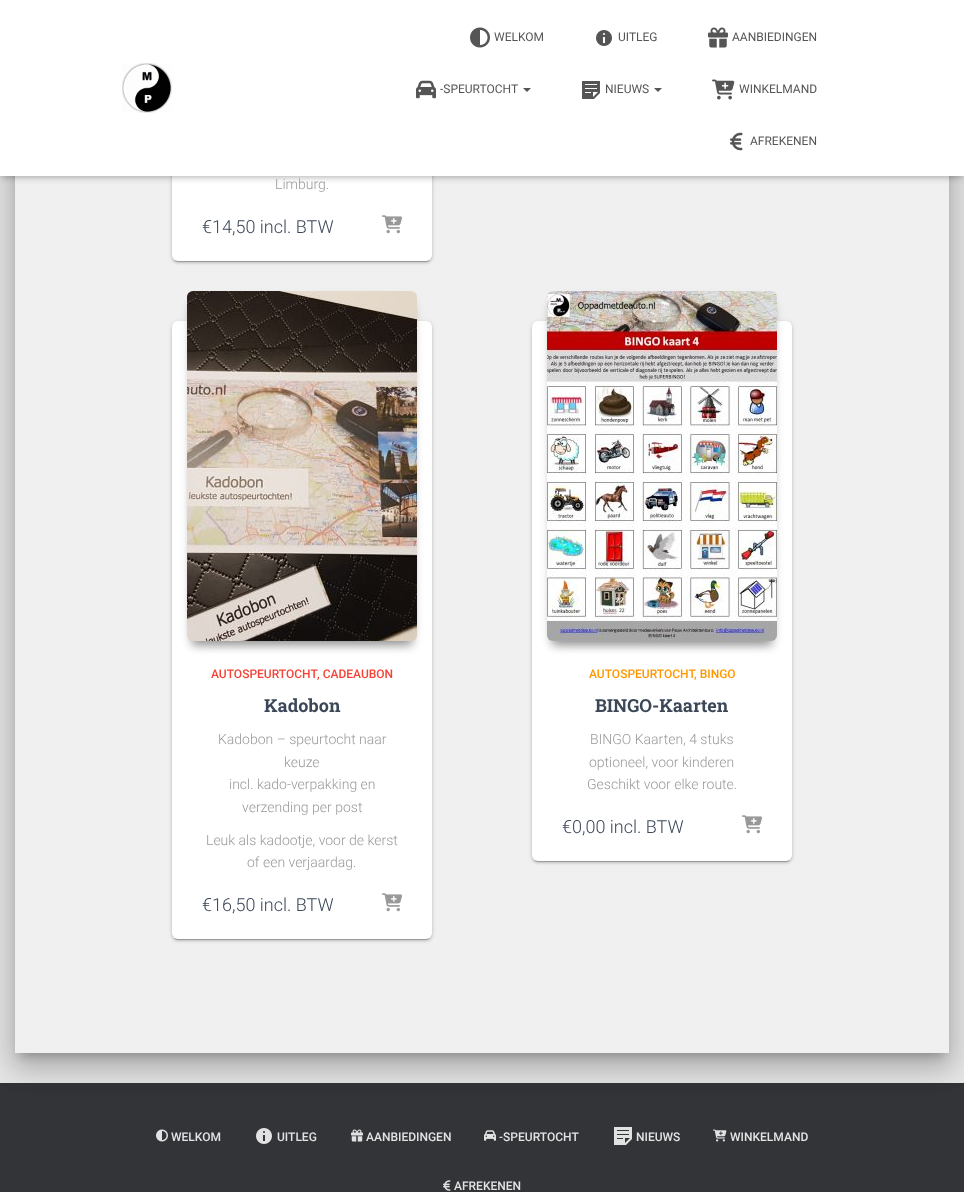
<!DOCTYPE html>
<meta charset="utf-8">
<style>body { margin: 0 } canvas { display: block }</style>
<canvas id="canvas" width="964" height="1192"></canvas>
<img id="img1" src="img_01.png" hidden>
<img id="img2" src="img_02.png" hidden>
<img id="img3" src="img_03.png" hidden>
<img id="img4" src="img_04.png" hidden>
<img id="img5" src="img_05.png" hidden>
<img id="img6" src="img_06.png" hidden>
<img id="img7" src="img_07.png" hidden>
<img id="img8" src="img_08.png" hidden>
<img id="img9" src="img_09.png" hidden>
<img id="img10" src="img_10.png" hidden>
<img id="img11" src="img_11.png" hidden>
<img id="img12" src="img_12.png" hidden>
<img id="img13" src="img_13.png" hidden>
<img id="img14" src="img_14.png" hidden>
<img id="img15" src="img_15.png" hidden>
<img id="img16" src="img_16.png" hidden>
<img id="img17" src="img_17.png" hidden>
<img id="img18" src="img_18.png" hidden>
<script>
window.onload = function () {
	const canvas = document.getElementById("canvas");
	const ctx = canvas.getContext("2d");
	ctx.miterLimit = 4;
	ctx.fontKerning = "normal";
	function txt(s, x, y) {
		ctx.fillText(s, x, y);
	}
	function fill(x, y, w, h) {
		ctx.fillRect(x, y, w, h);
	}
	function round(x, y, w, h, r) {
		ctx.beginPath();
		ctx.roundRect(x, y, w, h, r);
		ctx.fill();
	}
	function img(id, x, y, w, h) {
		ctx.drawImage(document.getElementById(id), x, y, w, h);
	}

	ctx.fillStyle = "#E5E5E5";
	fill(0, 0, 964, 1192);
	ctx.fillStyle = "rgba(0, 0, 0, 0.2)";
	ctx.filter = "blur(5px)";
	ctx.beginPath();
	ctx.roundRect(20, -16, 924, 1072, 1);
	ctx.fill();
	ctx.filter = "none";
	ctx.fillStyle = "#323437";
	fill(0, 1083, 964, 109);
	ctx.fillStyle = "rgba(0, 0, 0, 0.12)";
	ctx.filter = "blur(15px)";
	ctx.beginPath();
	ctx.roundRect(10, -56, 944, 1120, 11);
	ctx.fill();
	ctx.filter = "none";
	ctx.fillStyle = "rgba(0, 0, 0, 0.14)";
	ctx.filter = "blur(12px)";
	ctx.beginPath();
	ctx.roundRect(13, -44, 938, 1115, 8);
	ctx.fill();
	ctx.filter = "none";
	ctx.fillStyle = "#F0F0F0";
	fill(15, 176, 934, 877);
	ctx.fillStyle = "rgba(0, 0, 0, 0.12)";
	ctx.filter = "blur(2.5px)";
	ctx.beginPath();
	ctx.roundRect(172, -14, 260, 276, 6);
	ctx.fill();
	ctx.filter = "none";
	ctx.fillStyle = "rgba(0, 0, 0, 0.2)";
	ctx.filter = "blur(0.5px)";
	ctx.beginPath();
	ctx.roundRect(174, -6, 256, 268, 4);
	ctx.fill();
	ctx.filter = "none";
	ctx.fillStyle = "rgba(0, 0, 0, 0.14)";
	ctx.filter = "blur(1px)";
	ctx.beginPath();
	ctx.roundRect(172, -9, 260, 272, 6);
	ctx.fill();
	ctx.filter = "none";
	ctx.fillStyle = "#FFFFFF";
	round(172, -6, 260, 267, 6);
	ctx.fillStyle = "rgba(0, 0, 0, 0.1)";
	ctx.filter = "blur(2.5px)";
	ctx.beginPath();
	ctx.rect(2, 6, 960, 172);
	ctx.fill();
	ctx.filter = "none";
	ctx.fillStyle = "rgba(0, 0, 0, 0.12)";
	ctx.filter = "blur(5px)";
	ctx.beginPath();
	ctx.rect(0, 1, 964, 176);
	ctx.fill();
	ctx.filter = "none";
	ctx.fillStyle = "rgba(0, 0, 0, 0.42)";
	ctx.filter = "blur(5px)";
	ctx.beginPath();
	ctx.rect(6, 7, 952, 164);
	ctx.fill();
	ctx.filter = "none";
	ctx.fillStyle = "#FFFFFF";
	fill(0, 0, 964, 176);
	img("img1", 122, 63, 50, 50);
	img("img2", 470, 27, 20, 21);
	img("img3", 596, 30, 16, 16);
	img("img4", 708, 27, 20, 21);
	img("img5", 416, 80, 20, 19);
	ctx.fillStyle = "#555555";
	ctx.beginPath();
	ctx.moveTo(523, 88);
	ctx.lineTo(531, 88);
	ctx.lineTo(527, 92);
	ctx.closePath();
	ctx.fill();
	img("img6", 582, 81, 18, 18);
	ctx.beginPath();
	ctx.moveTo(654, 88);
	ctx.lineTo(662, 88);
	ctx.lineTo(658, 92);
	ctx.closePath();
	ctx.fill();
	img("img7", 712, 79, 23, 21);
	img("img8", 730, 132, 13, 19);
	img("img9", 382, 215, 20, 19);
	ctx.fillStyle = "rgba(0, 0, 0, 0.12)";
	ctx.filter = "blur(2.5px)";
	ctx.beginPath();
	ctx.roundRect(172, 322, 260, 618, 6);
	ctx.fill();
	ctx.filter = "none";
	ctx.fillStyle = "rgba(0, 0, 0, 0.2)";
	ctx.filter = "blur(0.5px)";
	ctx.beginPath();
	ctx.roundRect(174, 326, 256, 614, 4);
	ctx.fill();
	ctx.filter = "none";
	ctx.fillStyle = "rgba(0, 0, 0, 0.14)";
	ctx.filter = "blur(1px)";
	ctx.beginPath();
	ctx.roundRect(172, 323, 260, 618, 6);
	ctx.fill();
	ctx.filter = "none";
	ctx.fillStyle = "#FFFFFF";
	round(172, 321, 260, 618, 6);
	ctx.fillStyle = "rgba(0, 0, 0, 0.2)";
	ctx.filter = "blur(5px)";
	ctx.beginPath();
	ctx.roundRect(192, 306, 220, 340, 1);
	ctx.fill();
	ctx.filter = "none";
	ctx.filter = "blur(5px)";
	ctx.beginPath();
	ctx.roundRect(192, 304, 220, 340, 1);
	ctx.fill();
	ctx.filter = "none";
	ctx.fillStyle = "rgba(0, 0, 0, 0.24)";
	ctx.filter = "blur(7.5px)";
	ctx.beginPath();
	ctx.rect(195, 304, 214, 334);
	ctx.fill();
	ctx.filter = "none";
	img("img10", 187, 291, 230, 350);
	img("img9", 382, 893, 20, 19);
	ctx.fillStyle = "rgba(0, 0, 0, 0.12)";
	ctx.filter = "blur(2.5px)";
	ctx.beginPath();
	ctx.roundRect(532, 322, 260, 540, 6);
	ctx.fill();
	ctx.filter = "none";
	ctx.fillStyle = "rgba(0, 0, 0, 0.2)";
	ctx.filter = "blur(0.5px)";
	ctx.beginPath();
	ctx.roundRect(534, 326, 256, 536, 4);
	ctx.fill();
	ctx.filter = "none";
	ctx.fillStyle = "rgba(0, 0, 0, 0.14)";
	ctx.filter = "blur(1px)";
	ctx.beginPath();
	ctx.roundRect(532, 323, 260, 540, 6);
	ctx.fill();
	ctx.filter = "none";
	ctx.fillStyle = "#FFFFFF";
	round(532, 321, 260, 540, 6);
	ctx.fillStyle = "rgba(0, 0, 0, 0.2)";
	ctx.filter = "blur(5px)";
	ctx.beginPath();
	ctx.roundRect(552, 306, 220, 340, 1);
	ctx.fill();
	ctx.filter = "none";
	ctx.filter = "blur(5px)";
	ctx.beginPath();
	ctx.roundRect(552, 304, 220, 340, 1);
	ctx.fill();
	ctx.filter = "none";
	ctx.fillStyle = "rgba(0, 0, 0, 0.24)";
	ctx.filter = "blur(7.5px)";
	ctx.beginPath();
	ctx.rect(555, 304, 214, 334);
	ctx.fill();
	ctx.filter = "none";
	img("img11", 547, 291, 230, 350);
	img("img9", 742, 815, 20, 19);
	img("img12", 156, 1129, 12, 13);
	img("img13", 256, 1128, 16, 16);
	img("img14", 351, 1129, 12, 13);
	img("img15", 484, 1130, 12, 11);
	img("img16", 614, 1127, 18, 18);
	img("img17", 713, 1129, 14, 13);
	img("img18", 443, 1180, 8, 11);
	ctx.font = "12px Roboto";
	ctx.fillStyle = "#555555";
	txt("WELKOM", 494, 41);
	txt("UITLEG", 618, 41);
	txt("AANBIEDINGEN", 732, 41);
	txt("-SPEURTOCHT", 440, 93);
	txt("NIEUWS", 605, 93);
	txt("WINKELMAND", 739, 93);
	txt("AFREKENEN", 750, 145);
	ctx.font = "300 14px Roboto";
	ctx.fillStyle = "#999999";
	txt("Limburg.", 275, 189);
	ctx.font = "300 18px Roboto";
	ctx.fillStyle = "#3C4858";
	txt("€14,50 incl. BTW", 202, 233);
	ctx.font = "500 12px Roboto";
	ctx.fillStyle = "#F44336";
	txt("AUTOSPEURTOCHT", 211, 678);
	txt(", CADEAUBON", 317, 678);
	ctx.font = "bold 18px Roboto Slab";
	ctx.fillStyle = "#3C4858";
	txt("Kadobon", 264, 712);
	ctx.font = "300 14px Roboto";
	ctx.fillStyle = "#999999";
	txt("Kadobon – speurtocht naar", 218, 744);
	txt("keuze", 284, 767);
	txt("incl. kado-verpakking en", 229, 789);
	txt("verzending per post", 242, 812);
	txt("Leuk als kadootje, voor de kerst", 206, 845);
	txt("of een verjaardag.", 247, 867);
	ctx.font = "300 18px Roboto";
	ctx.fillStyle = "#3C4858";
	txt("€16,50 incl. BTW", 202, 911);
	ctx.font = "500 12px Roboto";
	ctx.fillStyle = "#FF9800";
	txt("AUTOSPEURTOCHT", 589, 678);
	txt(", BINGO", 694, 678);
	ctx.font = "bold 18px Roboto Slab";
	ctx.fillStyle = "#3C4858";
	txt("BINGO-Kaarten", 595, 712);
	ctx.font = "300 14px Roboto";
	ctx.fillStyle = "#999999";
	txt("BINGO Kaarten, 4 stuks", 590, 744);
	txt("optioneel, voor kinderen", 589, 767);
	txt("Geschikt voor elke route.", 587, 789);
	ctx.font = "300 18px Roboto";
	ctx.fillStyle = "#3C4858";
	txt("€0,00 incl. BTW", 562, 833);
	ctx.font = "500 12px Roboto";
	ctx.fillStyle = "#E2E3E3";
	txt("WELKOM", 171, 1141);
	txt("UITLEG", 277, 1141);
	txt("AANBIEDINGEN", 366, 1141);
	txt("-SPEURTOCHT", 499, 1141);
	txt("NIEUWS", 636, 1141);
	txt("WINKELMAND", 730, 1141);
	txt("AFREKENEN", 454, 1190);
};
</script>
